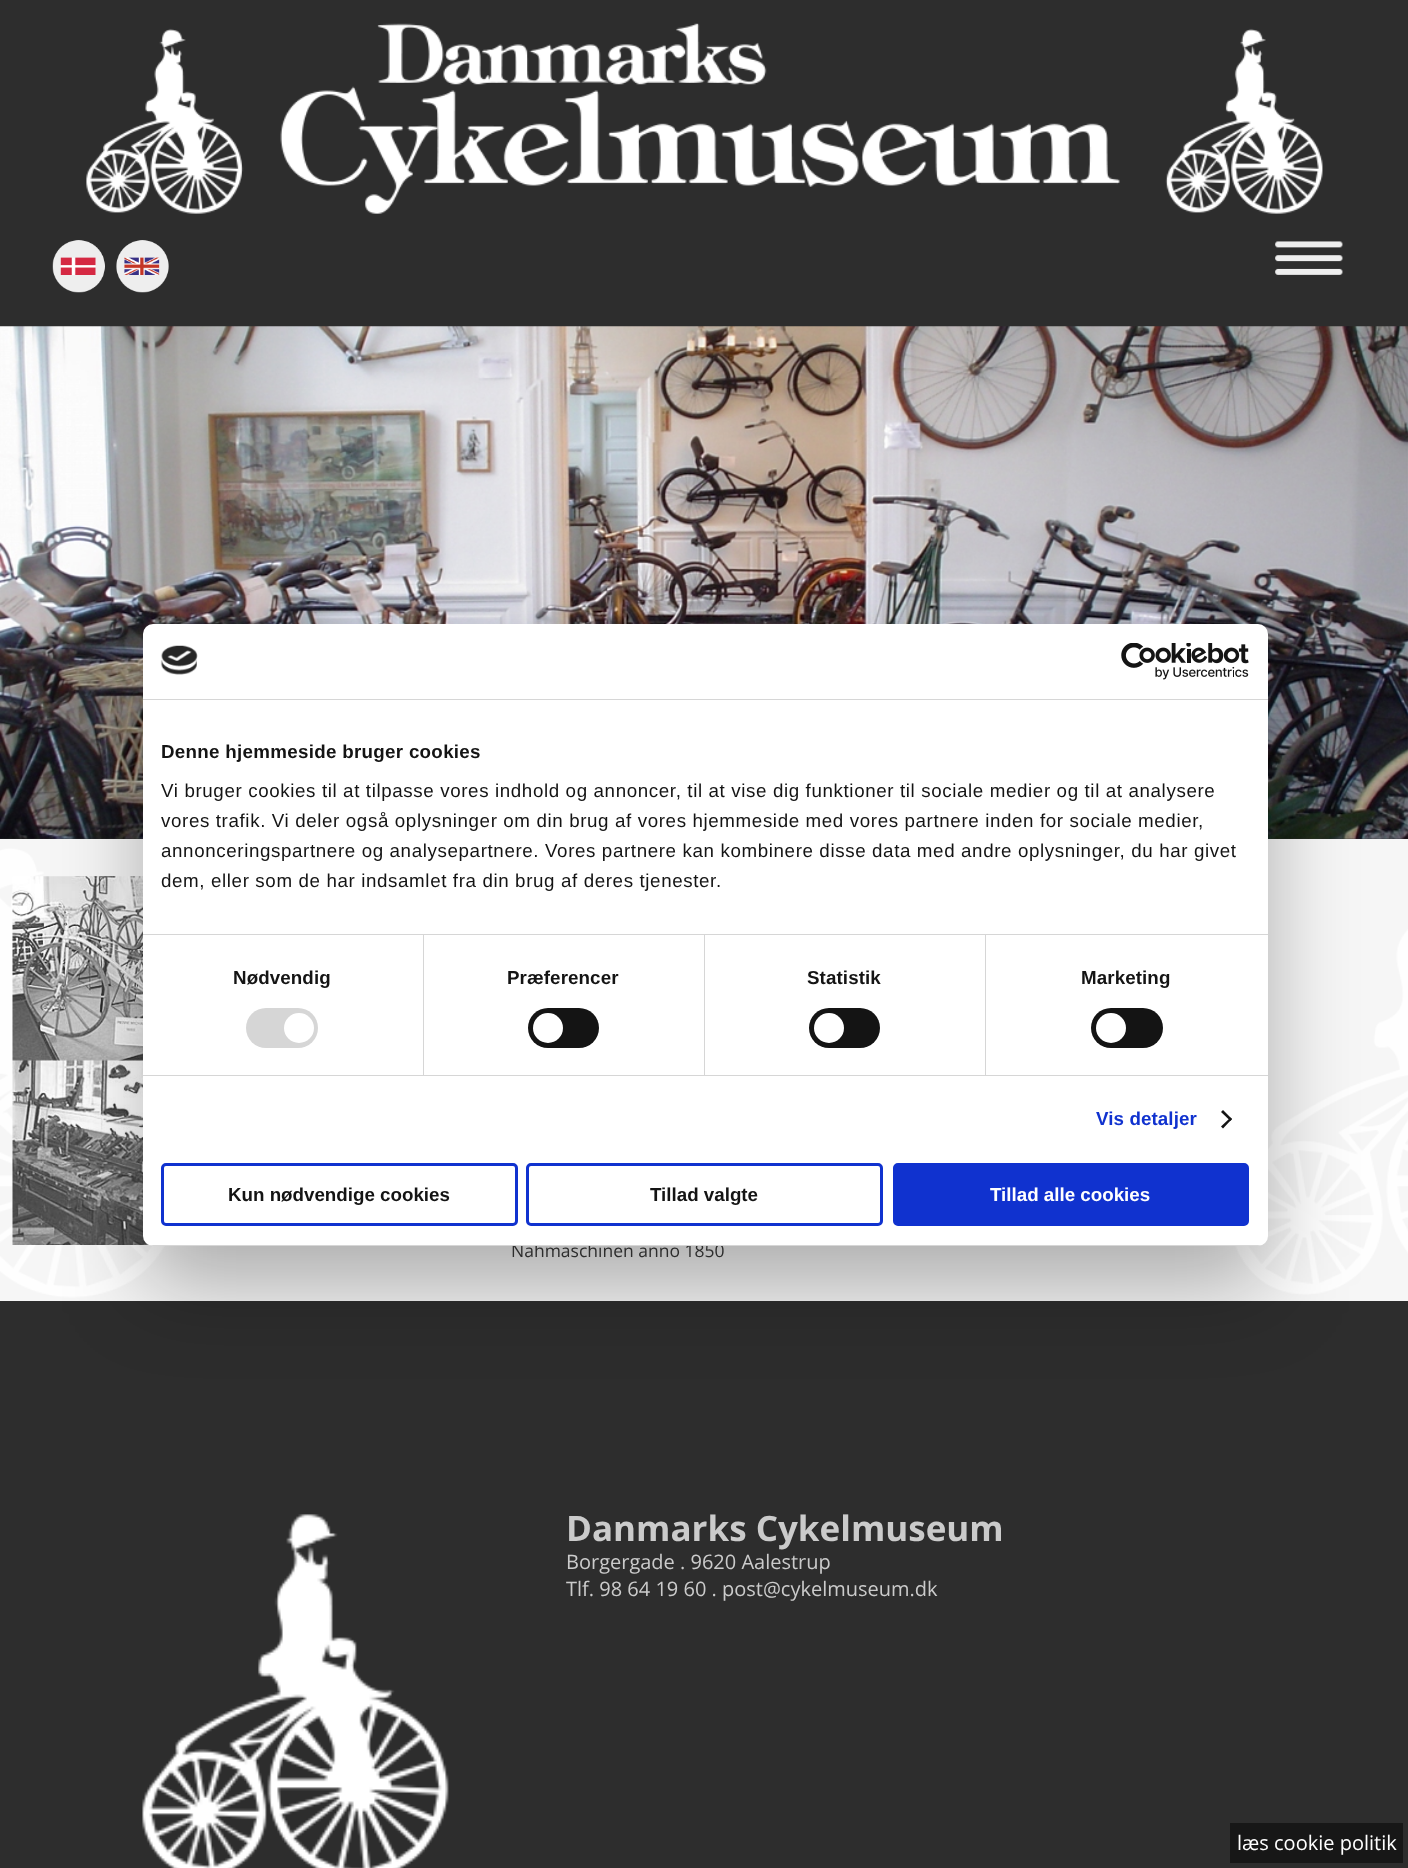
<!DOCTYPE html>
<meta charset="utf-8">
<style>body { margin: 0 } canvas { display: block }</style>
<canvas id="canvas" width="1408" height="1868"></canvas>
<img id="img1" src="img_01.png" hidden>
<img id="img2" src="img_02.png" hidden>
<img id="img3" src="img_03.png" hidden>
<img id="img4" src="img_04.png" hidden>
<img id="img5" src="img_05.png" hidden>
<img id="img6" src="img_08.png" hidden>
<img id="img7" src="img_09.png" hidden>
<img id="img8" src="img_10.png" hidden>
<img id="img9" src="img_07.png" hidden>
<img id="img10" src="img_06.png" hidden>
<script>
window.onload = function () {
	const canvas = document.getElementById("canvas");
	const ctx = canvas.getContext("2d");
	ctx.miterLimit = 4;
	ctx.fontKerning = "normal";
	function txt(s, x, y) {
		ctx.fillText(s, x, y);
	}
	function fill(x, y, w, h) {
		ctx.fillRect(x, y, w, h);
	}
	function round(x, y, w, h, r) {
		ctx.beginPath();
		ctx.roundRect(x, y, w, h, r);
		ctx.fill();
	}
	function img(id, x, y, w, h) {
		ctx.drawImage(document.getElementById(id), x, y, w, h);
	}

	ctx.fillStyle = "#2D2D2D";
	fill(0, 0, 1408, 1868);
	img("img1", 86, 23, 1237, 191);
	img("img2", 52, 240, 53, 53);
	img("img3", 116, 240, 53, 53);
	img("img4", 1275, 241, 68, 34);
	img("img5", 0, 326, 1408, 513);
	ctx.fillStyle = "#F6F6F6";
	fill(0, 839, 1408, 462);
	img("img6", 0, 848, 1408, 450);
	img("img7", 12, 876, 137, 369);
	ctx.fillStyle = "rgba(0, 0, 0, 0.3)";
	ctx.filter = "blur(42.5px)";
	ctx.beginPath();
	ctx.roundRect(143, 664, 1125, 622, 10);
	ctx.fill();
	ctx.filter = "none";
	img("img8", 142, 1514, 307, 354);
	ctx.fillStyle = "#171717";
	fill(1230, 1823, 173, 40);
	ctx.font = "17.5px Open Sans";
	ctx.fillStyle = "#2D2D2D";
	txt("Nähmaschinen anno 1850", 511, 1257);
	ctx.fillStyle = "#FFFFFF";
	round(143, 624, 1125, 622, 10);
	ctx.fillStyle = "#1032CF";
	ctx.beginPath();
	ctx.roundRect(894.5, 1164.5, 353, 60, 3.5);
	ctx.fill();
	ctx.strokeStyle = "#1032CF";
	ctx.lineWidth = 3;
	ctx.stroke();
	ctx.font = "bold 18.75px Liberation Sans";
	ctx.fillStyle = "#FFFFFF";
	txt("Tillad alle cookies", 990, 1201);
	ctx.beginPath();
	ctx.roundRect(527.5, 1164.5, 354, 60, 3.5);
	ctx.stroke();
	ctx.fillStyle = "#141414";
	txt("Tillad valgte", 650, 1201);
	ctx.beginPath();
	ctx.roundRect(162.5, 1164.5, 354, 60, 3.5);
	ctx.stroke();
	txt("Kun nødvendige cookies", 228, 1201);
	ctx.save();
	ctx.beginPath();
	ctx.roundRect(143, 624, 1125, 622, 10);
	ctx.clip();
	ctx.fillStyle = "#D6D6D6";
	fill(143, 1245, 1125, 1);
	ctx.restore();
	ctx.beginPath();
	ctx.moveTo(1223, 1110);
	ctx.lineTo(1232, 1119);
	ctx.lineTo(1230.5, 1121);
	ctx.lineTo(1221, 1112);
	ctx.closePath();
	ctx.fill();
	ctx.beginPath();
	ctx.moveTo(1230.5, 1117.5);
	ctx.lineTo(1232, 1119);
	ctx.lineTo(1223, 1128.5);
	ctx.lineTo(1221, 1126.5);
	ctx.closePath();
	ctx.fill();
	round(1091, 1008, 72, 40, 20);
	ctx.fillStyle = "#FFFFFF";
	ctx.beginPath();
	ctx.arc(1111, 1028, 15, 0, Math.PI * 2);
	ctx.fill();
	ctx.fillStyle = "#141414";
	round(809, 1008, 71, 40, 20);
	ctx.fillStyle = "#FFFFFF";
	ctx.beginPath();
	ctx.arc(829, 1028, 15, 0, Math.PI * 2);
	ctx.fill();
	ctx.fillStyle = "#141414";
	round(528, 1008, 71, 40, 20);
	ctx.fillStyle = "#FFFFFF";
	ctx.beginPath();
	ctx.arc(548, 1028, 15, 0, Math.PI * 2);
	ctx.fill();
	ctx.fillStyle = "#D6D6D6";
	round(246, 1008, 72, 40, 20);
	ctx.fillStyle = "#FFFFFF";
	ctx.beginPath();
	ctx.arc(299, 1028, 15, 0, Math.PI * 2);
	ctx.fill();
	ctx.letterSpacing = "0.62px";
	ctx.font = "18.75px Liberation Sans";
	ctx.fillStyle = "#141414";
	txt("dem, eller som de har indsamlet fra din brug af deres tjenester.", 161, 887);
	txt("annonceringspartnere og analysepartnere. Vores partnere kan kombinere disse data med andre oplysninger, du har givet", 161, 857);
	txt("vores trafik. Vi deler også oplysninger om din brug af vores hjemmeside med vores partnere inden for sociale medier,", 161, 827);
	txt("Vi bruger cookies til at tilpasse vores indhold og annoncer, til at vise dig funktioner til sociale medier og til at analysere", 161, 797);
	ctx.letterSpacing = "0.3px";
	ctx.font = "bold 18.75px Liberation Sans";
	txt("Denne hjemmeside bruger cookies", 161, 758);
	ctx.fillStyle = "#D6D6D6";
	fill(143, 934, 1125, 1);
	ctx.letterSpacing = "0.1px";
	ctx.fillStyle = "#1032CF";
	txt("Vis detaljer", 1096, 1125);
	ctx.fillStyle = "#141414";
	txt("Marketing", 1081, 984);
	txt("Statistik", 807, 984);
	ctx.fillStyle = "#D6D6D6";
	fill(985, 935, 1, 140);
	ctx.fillStyle = "#141414";
	txt("Præferencer", 507, 984);
	ctx.fillStyle = "#D6D6D6";
	fill(704, 935, 1, 140);
	ctx.fillStyle = "#141414";
	txt("Nødvendig", 233, 984);
	ctx.fillStyle = "#D6D6D6";
	fill(423, 935, 1, 140);
	fill(143, 1075, 1125, 1);
	img("img9", 1121, 643, 128, 37);
	img("img10", 160, 645, 38, 30);
	fill(143, 699, 1125, 1);
	ctx.letterSpacing = "0px";
	ctx.font = "bold 35px Open Sans";
	ctx.fillStyle = "#CBCBCB";
	txt("Danmarks Cykelmuseum", 566, 1541);
	ctx.font = "20px Open Sans";
	txt("Borgergade . 9620 Aalestrup", 566, 1569);
	txt("Tlf. 98 64 19 60 . post@cykelmuseum.dk", 566, 1596);
	ctx.fillStyle = "#FFFFFF";
	txt("læs cookie politik", 1237, 1850);
};
</script>
